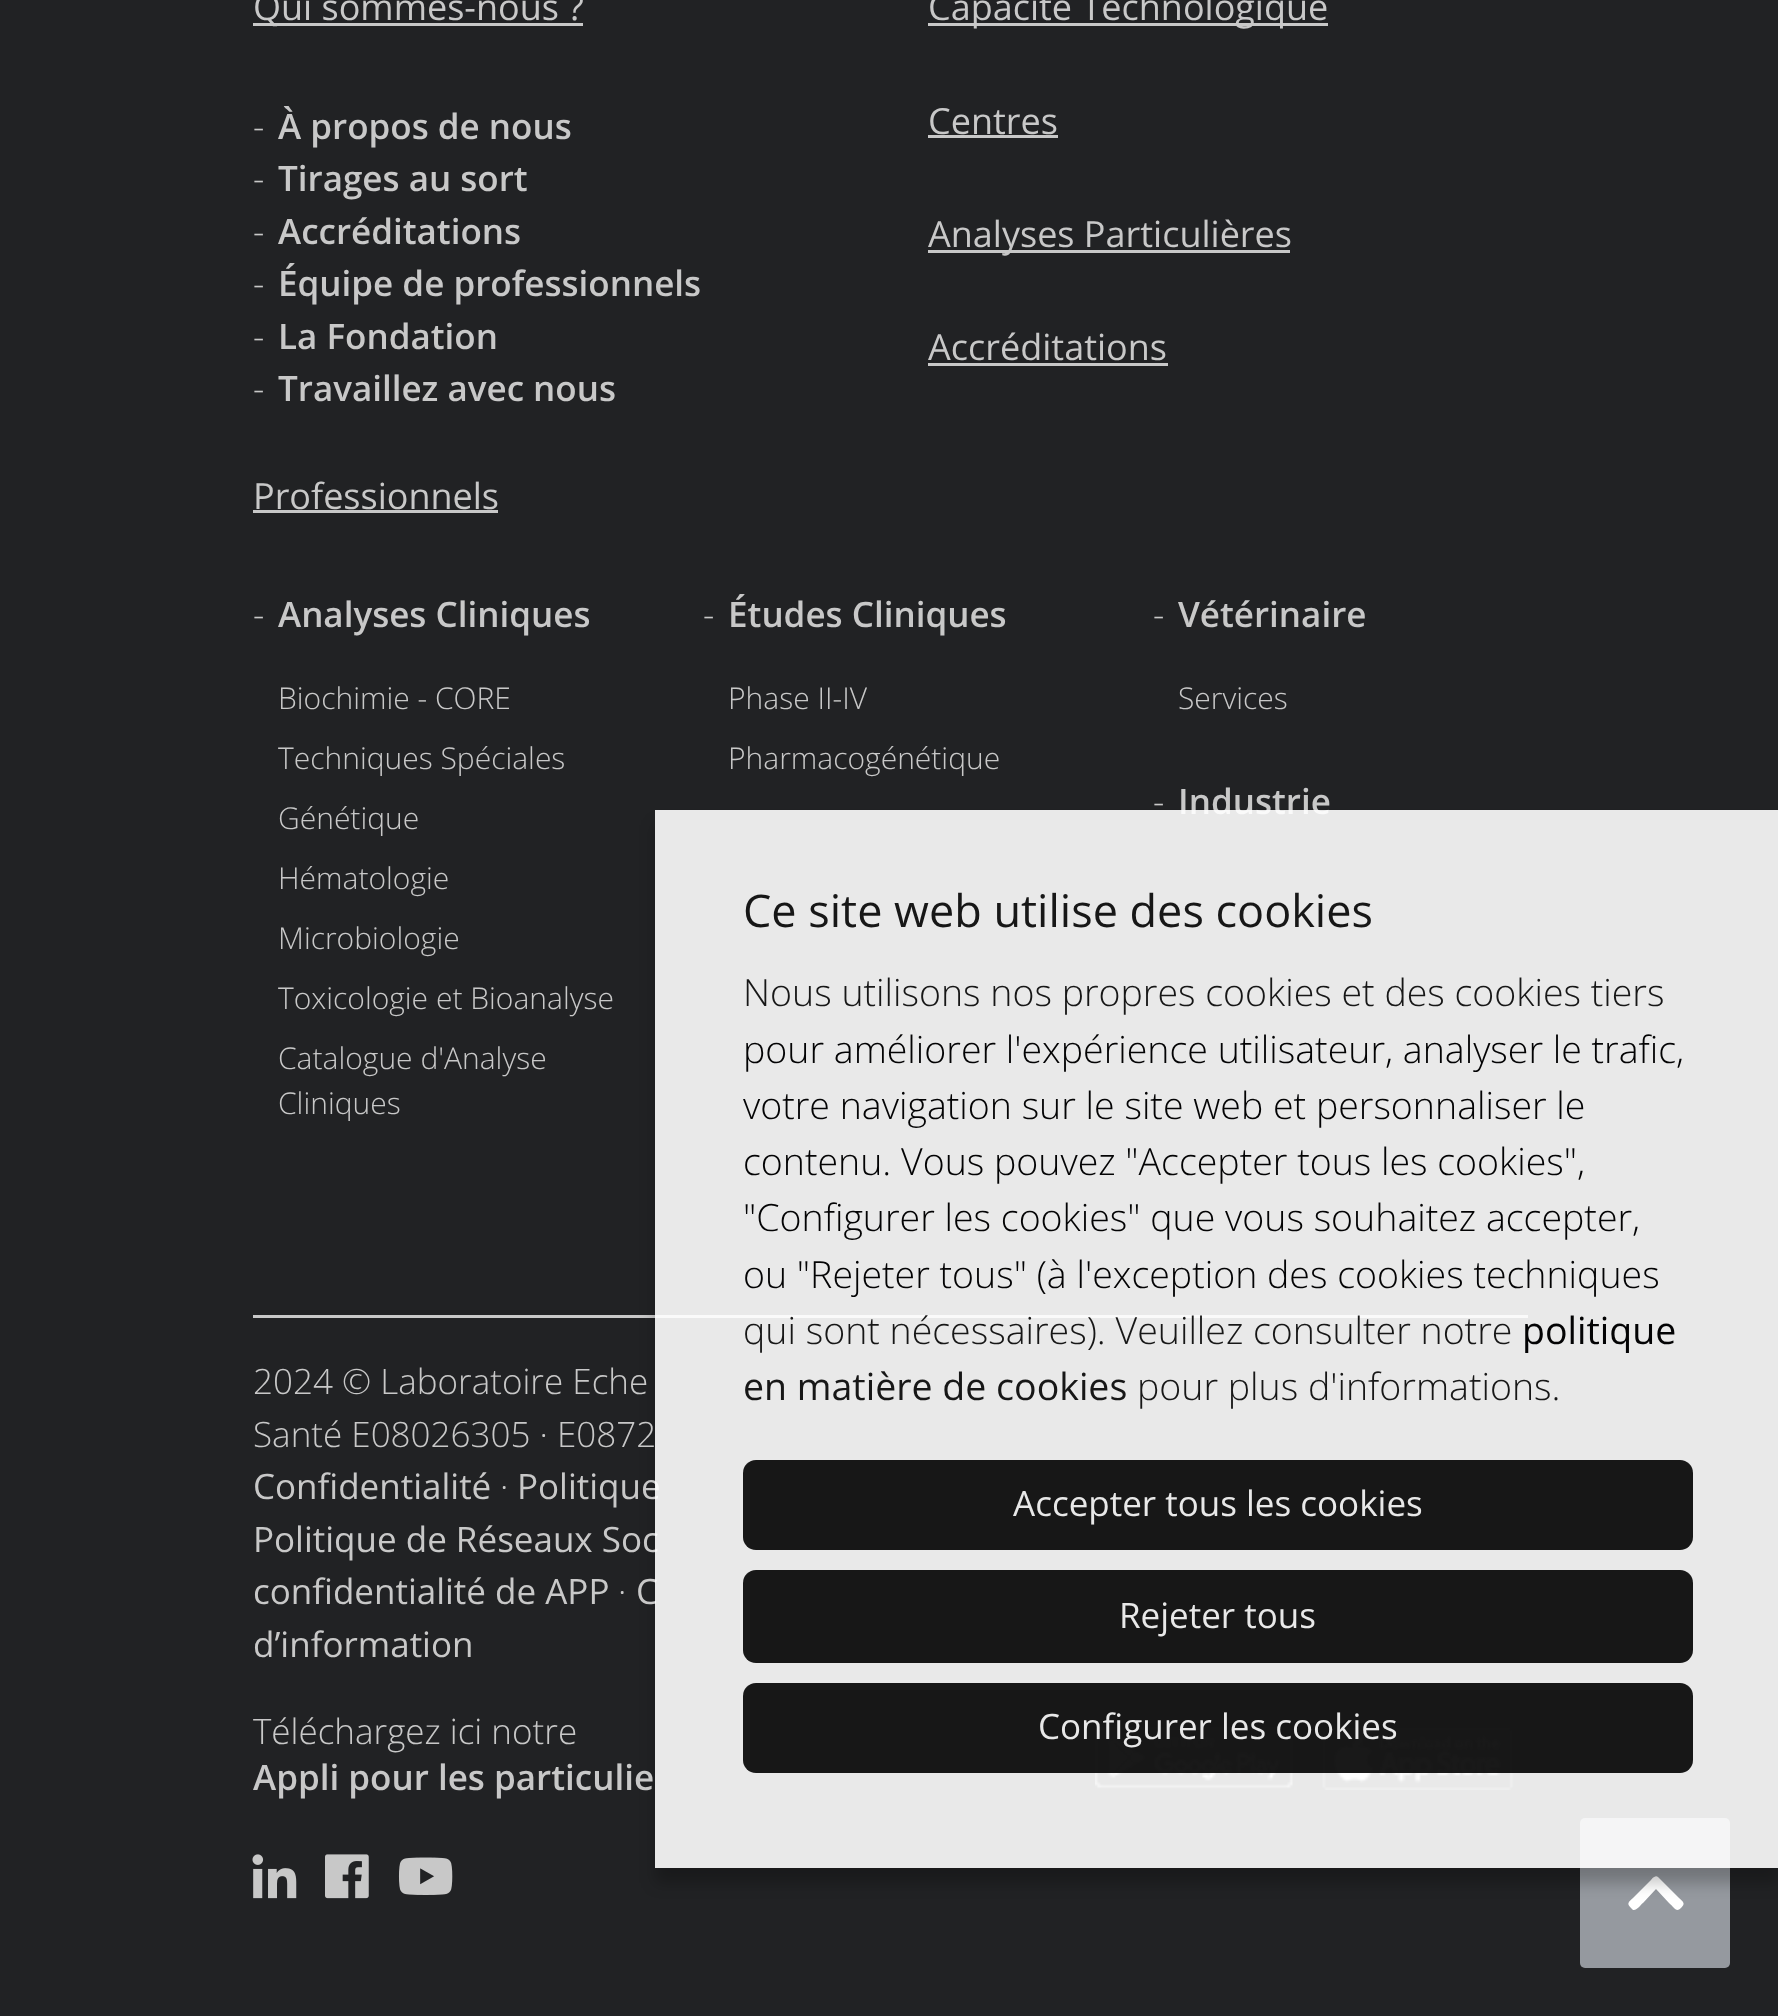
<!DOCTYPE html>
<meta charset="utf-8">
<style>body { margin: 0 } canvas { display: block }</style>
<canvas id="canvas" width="1778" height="2016"></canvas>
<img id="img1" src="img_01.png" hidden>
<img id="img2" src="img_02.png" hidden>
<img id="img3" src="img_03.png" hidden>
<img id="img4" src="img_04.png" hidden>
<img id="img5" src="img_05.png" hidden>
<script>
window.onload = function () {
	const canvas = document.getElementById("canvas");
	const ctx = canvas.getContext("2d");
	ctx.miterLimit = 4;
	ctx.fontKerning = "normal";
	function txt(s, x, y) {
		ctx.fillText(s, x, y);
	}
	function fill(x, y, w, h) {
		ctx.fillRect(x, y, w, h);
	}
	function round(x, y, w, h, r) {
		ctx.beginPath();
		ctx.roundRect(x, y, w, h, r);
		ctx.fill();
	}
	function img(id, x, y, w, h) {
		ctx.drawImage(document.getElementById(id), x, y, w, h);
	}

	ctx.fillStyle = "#212224";
	fill(0, 0, 1778, 2016);
	ctx.fillStyle = "#C8C8C8";
	fill(253, 23, 330, 3);
	fill(928, 23, 400, 3);
	fill(928, 135, 130, 3);
	fill(928, 250, 362, 3);
	fill(928, 363, 240, 3);
	fill(253, 510, 245, 3);
	fill(253, 1315, 1275, 3);
	img("img1", 1095, 1727, 198, 62);
	img("img2", 1322, 1727, 192, 63);
	img("img3", 252, 1854, 45, 45);
	img("img4", 325, 1854, 44, 45);
	img("img5", 398, 1857, 55, 38);
	ctx.fillStyle = "#95999F";
	round(1580, 1818, 150, 150, 5);
	ctx.fillStyle = "#FFFFFF";
	ctx.beginPath();
	ctx.moveTo(1658, 1877);
	ctx.lineTo(1679, 1898);
	ctx.bezierCurveTo(1683, 1902, 1686, 1903, 1681, 1908);
	ctx.bezierCurveTo(1676, 1913, 1674, 1907, 1669, 1903);
	ctx.lineTo(1656, 1889);
	ctx.lineTo(1643, 1903);
	ctx.bezierCurveTo(1641, 1904, 1637, 1911, 1633, 1910);
	ctx.lineTo(1631, 1908);
	ctx.bezierCurveTo(1626, 1903, 1629, 1902, 1633, 1898);
	ctx.lineTo(1650, 1881);
	ctx.bezierCurveTo(1651, 1880, 1655, 1874, 1658, 1877);
	ctx.closePath();
	ctx.fill();
	ctx.save();
	ctx.beginPath();
	ctx.moveTo(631, 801);
	ctx.lineTo(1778, 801);
	ctx.lineTo(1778, 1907);
	ctx.lineTo(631, 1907);
	ctx.closePath();
	ctx.moveTo(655, 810);
	ctx.lineTo(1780, 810);
	ctx.lineTo(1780, 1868);
	ctx.lineTo(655, 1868);
	ctx.closePath();
	ctx.clip("evenodd");
	ctx.fillStyle = "rgba(0, 0, 0, 0.23)";
	ctx.filter = "blur(7.5px)";
	ctx.beginPath();
	ctx.rect(655, 825, 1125, 1058);
	ctx.fill();
	ctx.filter = "none";
	ctx.restore();
	ctx.font = "36px Open Sans";
	ctx.fillStyle = "#C8C8C8";
	txt("Qui sommes-nous ?", 253, 20);
	ctx.font = "300 35px Open Sans";
	txt("-", 253, 139);
	ctx.font = "600 35px Open Sans";
	txt("À propos de nous", 278, 139);
	ctx.font = "300 35px Open Sans";
	txt("-", 253, 191);
	ctx.font = "600 35px Open Sans";
	txt("Tirages au sort", 278, 191);
	ctx.font = "300 35px Open Sans";
	txt("-", 253, 244);
	ctx.font = "600 35px Open Sans";
	txt("Accréditations", 278, 244);
	ctx.font = "300 35px Open Sans";
	txt("-", 253, 296);
	ctx.font = "600 35px Open Sans";
	txt("Équipe de professionnels", 278, 296);
	ctx.font = "300 35px Open Sans";
	txt("-", 253, 349);
	ctx.font = "600 35px Open Sans";
	txt("La Fondation", 278, 349);
	ctx.font = "300 35px Open Sans";
	txt("-", 253, 401);
	ctx.font = "600 35px Open Sans";
	txt("Travaillez avec nous", 278, 401);
	ctx.font = "36px Open Sans";
	txt("Capacité Technologique", 928, 20);
	txt("Centres", 928, 134);
	txt("Analyses Particulières", 928, 247);
	txt("Accréditations", 928, 360);
	txt("Professionnels", 253, 509);
	ctx.font = "300 35px Open Sans";
	txt("-", 253, 627);
	ctx.font = "600 35px Open Sans";
	txt("Analyses Cliniques", 278, 627);
	ctx.font = "300 30px Open Sans";
	txt("Biochimie - CORE", 278, 709);
	txt("Techniques Spéciales", 278, 769);
	txt("Génétique", 278, 829);
	txt("Hématologie", 278, 889);
	txt("Microbiologie", 278, 949);
	txt("Toxicologie et Bioanalyse", 278, 1009);
	txt("Catalogue d'Analyse", 278, 1069);
	txt("Cliniques", 278, 1114);
	ctx.font = "300 35px Open Sans";
	txt("-", 703, 627);
	ctx.font = "600 35px Open Sans";
	txt("Études Cliniques", 728, 627);
	ctx.font = "300 30px Open Sans";
	txt("Phase II-IV", 728, 709);
	txt("Pharmacogénétique", 728, 769);
	ctx.font = "300 35px Open Sans";
	txt("-", 1153, 627);
	ctx.font = "600 35px Open Sans";
	txt("Vétérinaire", 1178, 627);
	ctx.font = "300 30px Open Sans";
	txt("Services", 1178, 709);
	ctx.font = "300 35px Open Sans";
	txt("-", 1153, 814);
	ctx.font = "600 35px Open Sans";
	txt("Industrie", 1178, 814);
	ctx.font = "300 35px Open Sans";
	txt("2024 © Laboratoire Eche", 253, 1394);
	txt("Santé E08026305 · E0872", 253, 1447);
	ctx.font = "35px Open Sans";
	txt("Confidentialité", 253, 1499);
	ctx.font = "300 35px Open Sans";
	txt("·", 500, 1499);
	ctx.font = "35px Open Sans";
	txt("Politique", 517, 1499);
	txt("Politique de Réseaux Soc", 253, 1552);
	txt("confidentialité de APP", 253, 1604);
	ctx.font = "300 35px Open Sans";
	txt("·", 618, 1604);
	ctx.font = "35px Open Sans";
	txt("C", 636, 1604);
	txt("d’information", 253, 1657);
	ctx.font = "300 35px Open Sans";
	txt("Téléchargez ici notre", 253, 1744);
	ctx.font = "600 35px Open Sans";
	txt("Appli pour les particulie", 253, 1790);
	ctx.fillStyle = "rgba(255, 255, 255, 0.9)";
	fill(655, 810, 1123, 1058);
	ctx.font = "45px Open Sans";
	ctx.fillStyle = "#171717";
	txt("Ce site web utilise des cookies", 743, 927);
	ctx.font = "300 37.5px Open Sans";
	txt("Nous utilisons nos propres cookies et des cookies tiers", 743, 1006);
	ctx.fillStyle = "#030304";
	txt("pour améliorer l'expérience utilisateur, analyser le trafic,", 743, 1063);
	txt("votre navigation sur le site web et personnaliser le", 743, 1119);
	txt("contenu. Vous pouvez \"Accepter tous les cookies\",", 743, 1175);
	txt("\"Configurer les cookies\" que vous souhaitez accepter,", 743, 1231);
	txt("ou \"Rejeter tous\" (à l'exception des cookies techniques", 743, 1288);
	ctx.fillStyle = "#171717";
	txt("qui sont nécessaires). Veuillez consulter notre", 743, 1344);
	ctx.font = "37.5px Open Sans";
	ctx.fillStyle = "#030304";
	txt("politique", 1522, 1344);
	ctx.fillStyle = "#171717";
	txt("en matière de cookies", 743, 1400);
	ctx.font = "300 37.5px Open Sans";
	txt("pour plus d'informations.", 1137, 1400);
	ctx.fillStyle = "rgba(0, 0, 0, 0.9)";
	round(743, 1460, 950, 90, 13);
	ctx.font = "35px Open Sans";
	ctx.fillStyle = "#E8E8E8";
	txt("Accepter tous les cookies", 1013, 1516);
	ctx.fillStyle = "rgba(0, 0, 0, 0.9)";
	round(743, 1570, 950, 93, 13);
	ctx.fillStyle = "#E8E8E8";
	txt("Rejeter tous", 1119, 1628);
	ctx.fillStyle = "rgba(0, 0, 0, 0.9)";
	round(743, 1683, 950, 90, 13);
	ctx.fillStyle = "#E8E8E8";
	txt("Configurer les cookies", 1038, 1739);
};
</script>
